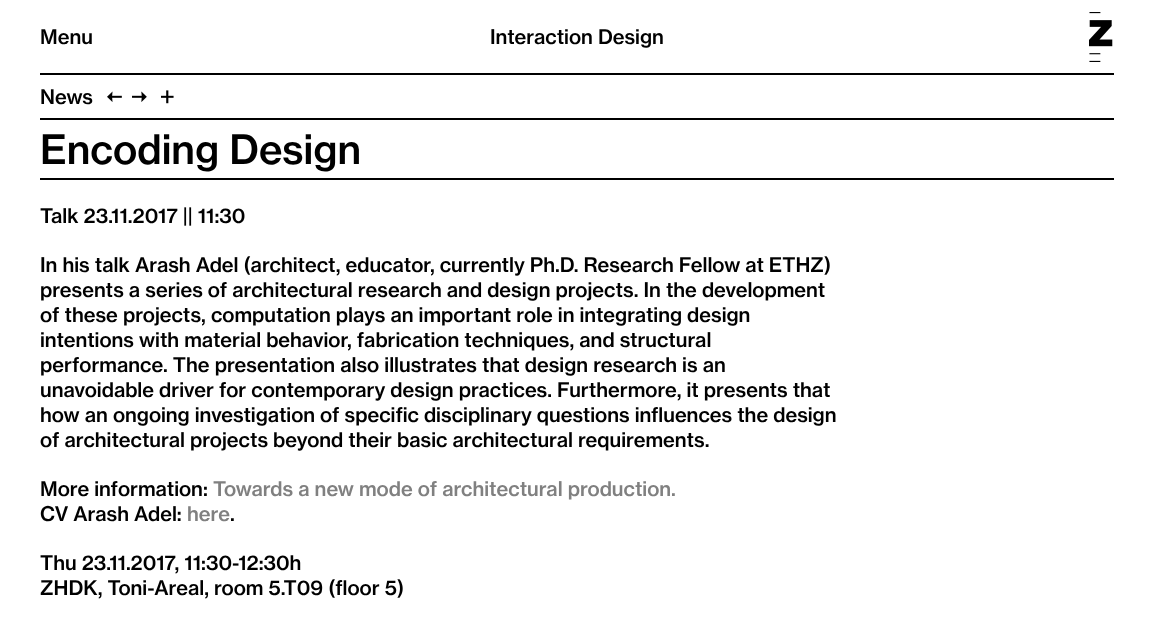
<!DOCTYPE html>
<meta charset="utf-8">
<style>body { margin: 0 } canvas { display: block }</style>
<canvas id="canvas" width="1154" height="625"></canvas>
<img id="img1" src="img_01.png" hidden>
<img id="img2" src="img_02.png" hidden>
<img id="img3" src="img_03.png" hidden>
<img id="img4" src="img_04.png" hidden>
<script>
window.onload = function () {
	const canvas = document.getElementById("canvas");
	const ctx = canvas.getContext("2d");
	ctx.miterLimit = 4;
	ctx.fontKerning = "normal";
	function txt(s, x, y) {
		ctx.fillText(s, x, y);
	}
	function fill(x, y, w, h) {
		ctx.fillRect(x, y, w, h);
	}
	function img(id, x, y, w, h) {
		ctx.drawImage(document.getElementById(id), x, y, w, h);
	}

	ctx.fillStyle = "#FFFFFF";
	fill(0, 0, 1154, 625);
	ctx.fillStyle = "#000000";
	fill(40, 73, 1074, 2);
	img("img1", 1089, 12, 24, 50);
	fill(40, 118, 1074, 2);
	img("img2", 107, 91, 15, 11);
	img("img3", 132, 91, 15, 11);
	img("img4", 161, 90, 13, 14);
	fill(40, 178, 1074, 2);
	ctx.font = "500 20px Neue Haas Grotesk";
	txt("Menu", 40, 44);
	txt("Interaction Design", 490, 44);
	txt("News", 40, 104);
	ctx.font = "500 40px Neue Haas Grotesk";
	txt("Encoding Design", 40, 164);
	ctx.font = "500 20px Neue Haas Grotesk";
	txt("Talk 23.11.2017 || 11:30", 40, 223);
	txt("In his talk Arash Adel (architect, educator, currently Ph.D. Research Fellow at ETHZ)", 40, 272);
	txt("presents a series of architectural research and design projects. In the development", 40, 297);
	txt("of these projects, computation plays an important role in integrating design", 40, 322);
	txt("intentions with material behavior, fabrication techniques, and structural", 40, 347);
	txt("performance. The presentation also illustrates that design research is an", 40, 372);
	txt("unavoidable driver for contemporary design practices. Furthermore, it presents that", 40, 397);
	txt("how an ongoing investigation of specific disciplinary questions influences the design", 40, 422);
	txt("of architectural projects beyond their basic architectural requirements.", 40, 447);
	txt("More information:", 40, 496);
	ctx.fillStyle = "#808080";
	txt("Towards a new mode of architectural production.", 213, 496);
	ctx.fillStyle = "#000000";
	txt("CV Arash Adel:", 40, 521);
	ctx.fillStyle = "#808080";
	txt("here", 187, 521);
	ctx.fillStyle = "#000000";
	txt(".", 230, 521);
	txt("Thu 23.11.2017, 11:30-12:30h", 40, 570);
	txt("ZHDK, Toni-Areal, room 5.T09 (floor 5)", 40, 595);
};
</script>
